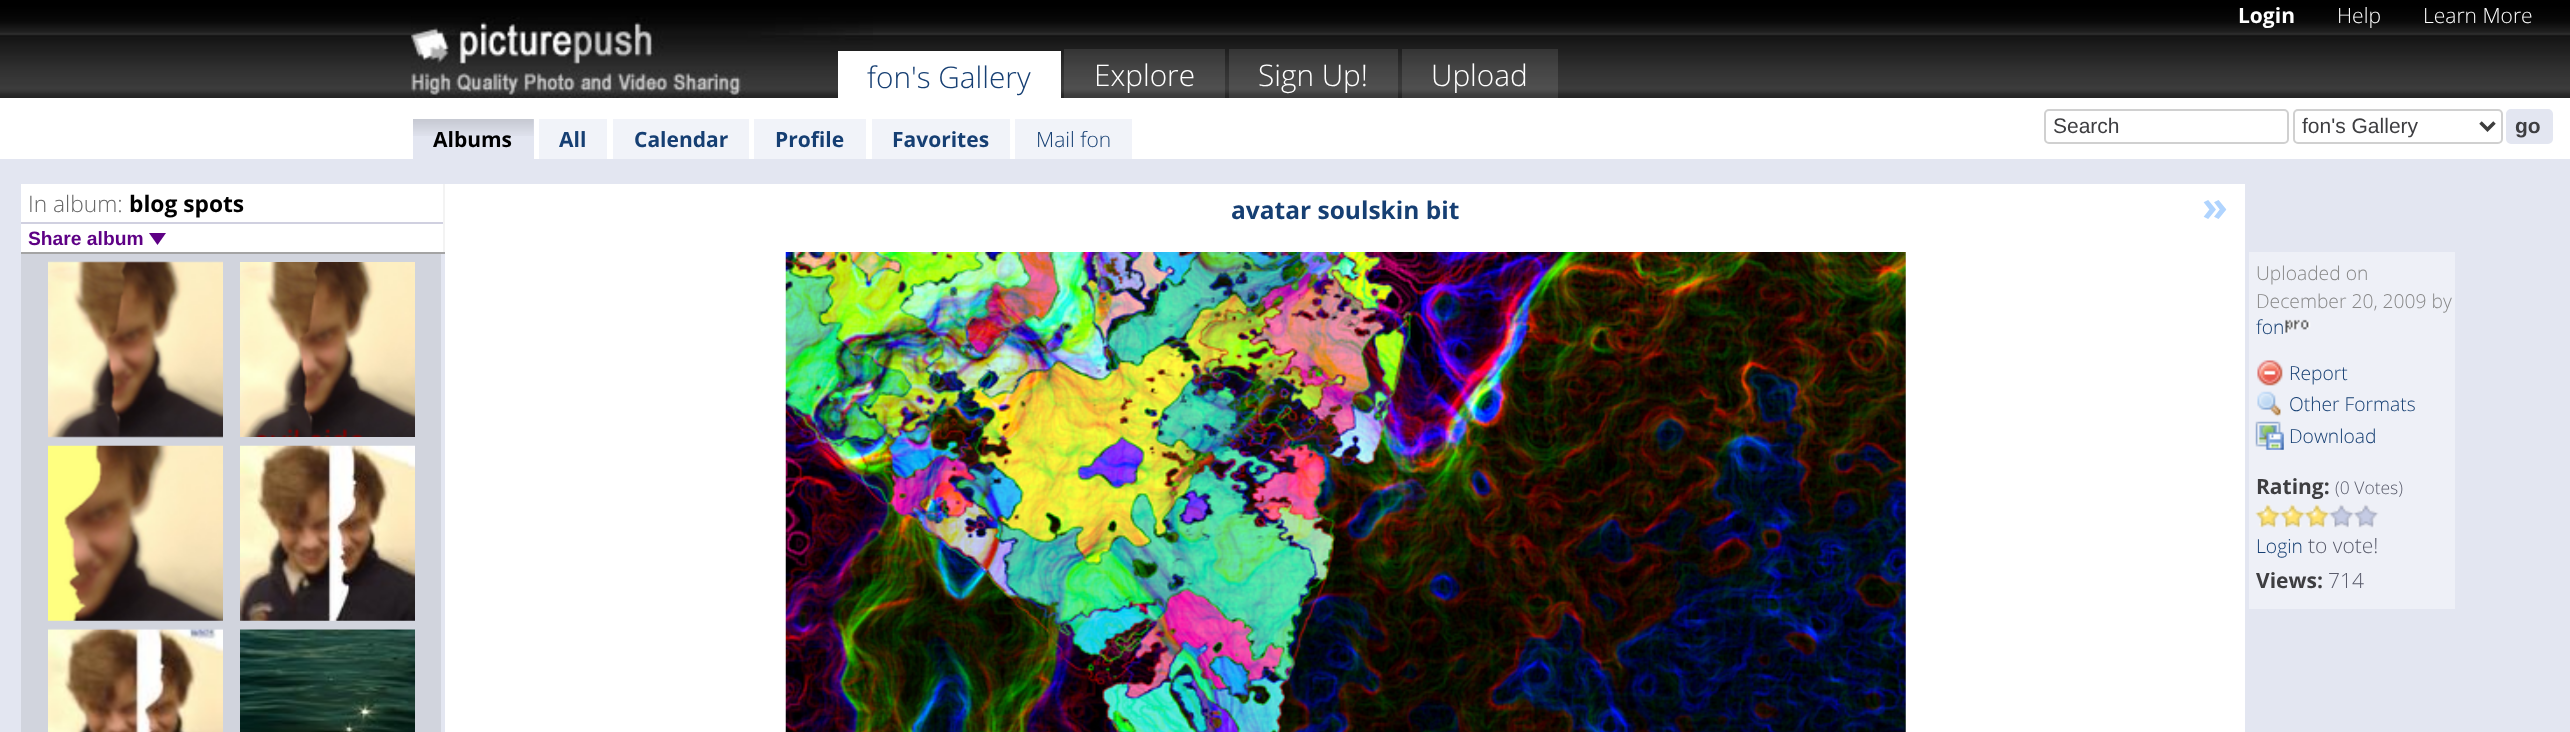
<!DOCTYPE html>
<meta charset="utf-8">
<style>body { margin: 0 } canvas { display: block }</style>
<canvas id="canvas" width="2570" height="732"></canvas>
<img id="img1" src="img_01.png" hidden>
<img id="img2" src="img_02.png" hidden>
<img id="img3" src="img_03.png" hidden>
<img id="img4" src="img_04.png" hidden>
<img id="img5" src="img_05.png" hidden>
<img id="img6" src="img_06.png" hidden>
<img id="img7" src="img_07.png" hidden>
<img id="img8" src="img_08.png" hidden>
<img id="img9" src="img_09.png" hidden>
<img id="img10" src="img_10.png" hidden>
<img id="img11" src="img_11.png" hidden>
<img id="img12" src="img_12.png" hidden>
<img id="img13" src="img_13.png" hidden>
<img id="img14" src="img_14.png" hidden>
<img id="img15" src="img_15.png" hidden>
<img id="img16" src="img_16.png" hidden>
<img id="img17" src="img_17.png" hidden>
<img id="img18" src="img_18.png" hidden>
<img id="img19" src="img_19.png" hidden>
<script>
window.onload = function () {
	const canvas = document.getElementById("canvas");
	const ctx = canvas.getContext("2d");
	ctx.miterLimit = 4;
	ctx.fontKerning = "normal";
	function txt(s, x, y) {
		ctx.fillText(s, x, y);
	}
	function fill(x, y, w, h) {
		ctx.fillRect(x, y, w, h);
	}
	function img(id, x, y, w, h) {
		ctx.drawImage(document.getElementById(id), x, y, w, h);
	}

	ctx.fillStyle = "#E3E6F1";
	fill(0, 0, 2570, 732);
	img("img1", 0, 0, 2570, 98);
	img("img2", 411, 16, 462, 82);
	ctx.fillStyle = "#FFFFFF";
	fill(838, 51, 223, 47);
	ctx.fillStyle = "rgba(255, 255, 255, 0.1)";
	fill(1064, 49, 161, 49);
	fill(1229, 49, 169, 49);
	fill(1402, 49, 156, 49);
	ctx.fillStyle = "#FFFFFF";
	fill(0, 98, 2570, 61);
	ctx.fillStyle = "#E3E6F1";
	fill(413, 119, 121, 40);
	img("img3", 413, 119, 121, 17);
	ctx.fillStyle = "#F1F3F9";
	fill(539, 119, 68, 40);
	fill(613, 119, 136, 40);
	fill(754, 119, 112, 40);
	fill(872, 119, 138, 40);
	fill(1015, 119, 117, 40);
	ctx.beginPath();
	ctx.roundRect(2045, 110, 243, 33, 4);
	ctx.strokeStyle = "#D0D0D0";
	ctx.lineWidth = 2;
	ctx.stroke();
	ctx.beginPath();
	ctx.roundRect(2294, 110, 208, 33, 4);
	ctx.stroke();
	ctx.beginPath();
	ctx.moveTo(2480.5, 122.5);
	ctx.lineTo(2487.5, 129.5);
	ctx.lineTo(2494.5, 122.5);
	ctx.strokeStyle = "#3E3E3E";
	ctx.lineWidth = 3.5;
	ctx.stroke();
	ctx.fillStyle = "#E3E6F1";
	ctx.beginPath();
	ctx.roundRect(2507, 110, 45, 33, 4);
	ctx.fill();
	ctx.strokeStyle = "#E3E6F1";
	ctx.lineWidth = 2;
	ctx.stroke();
	ctx.fillStyle = "#FFFFFF";
	fill(21, 184, 422, 68);
	ctx.fillStyle = "#F3F3F3";
	fill(443, 184, 2, 70);
	ctx.fillStyle = "#A4A4A4";
	fill(21, 252, 424, 2);
	ctx.fillStyle = "#D0D0E0";
	fill(21, 222, 422, 2);
	ctx.fillStyle = "#5E0085";
	ctx.beginPath();
	ctx.moveTo(149, 233);
	ctx.lineTo(166, 233);
	ctx.lineTo(157.5, 245);
	ctx.closePath();
	ctx.fill();
	ctx.fillStyle = "#D1D4DD";
	fill(21, 254, 420, 478);
	img("img4", 48, 261, 175, 177);
	img("img5", 240, 262, 175, 175);
	img("img6", 48, 445, 175, 176);
	img("img7", 240, 445, 175, 176);
	img("img8", 48, 628, 175, 104);
	img("img9", 240, 629, 175, 103);
	ctx.fillStyle = "#FFFFFF";
	fill(445, 184, 1800, 548);
	img("img10", 785, 252, 1121, 480);
	ctx.fillStyle = "#EEF0F7";
	fill(2249, 252, 206, 357);
	img("img11", 2285, 319, 26, 14);
	img("img12", 2257, 360, 26, 26);
	img("img13", 2257, 391, 24, 26);
	img("img14", 2255, 421, 29, 29);
	img("img15", 2255, 504, 26, 24);
	img("img16", 2280, 504, 25, 24);
	img("img17", 2304, 504, 26, 24);
	img("img18", 2329, 504, 25, 24);
	img("img19", 2354, 504, 25, 24);
	ctx.font = "300 29.75px Open Sans";
	ctx.fillStyle = "#163F73";
	txt("fon's Gallery", 867, 88);
	ctx.fillStyle = "#FFFFFF";
	txt("Explore", 1094, 86);
	txt("Sign Up!", 1258, 86);
	txt("Upload", 1431, 86);
	ctx.font = "bold 21px Open Sans";
	txt("Login", 2238, 23);
	ctx.font = "300 21px Open Sans";
	txt("Help", 2337, 23);
	txt("Learn More", 2423, 23);
	ctx.font = "bold 21px Open Sans";
	ctx.fillStyle = "#000000";
	txt("Albums", 433, 147);
	ctx.fillStyle = "#163F73";
	txt("All", 559, 147);
	txt("Calendar", 634, 147);
	txt("Profile", 775, 147);
	txt("Favorites", 892, 147);
	ctx.font = "300 21px Open Sans";
	txt("Mail fon", 1036, 147);
	ctx.font = "21px Liberation Sans";
	ctx.fillStyle = "#3E3E41";
	txt("Search", 2053, 133);
	txt("fon's Gallery", 2302, 133);
	ctx.font = "bold 21px Liberation Sans";
	txt("go", 2515, 133);
	ctx.font = "300 22.75px Open Sans";
	ctx.fillStyle = "#666666";
	txt("In album:", 28, 212);
	ctx.font = "bold 22.75px Open Sans";
	ctx.fillStyle = "#000000";
	txt("blog spots", 129, 212);
	ctx.font = "bold 19.25px Liberation Sans";
	ctx.fillStyle = "#5E0085";
	txt("Share album", 28, 245);
	ctx.font = "bold 24.5px Open Sans";
	ctx.fillStyle = "#163F73";
	txt("avatar soulskin bit", 1231, 219);
	ctx.font = "bold 42px Open Sans";
	ctx.fillStyle = "#B0D4FE";
	txt("»", 2202, 221);
	ctx.font = "300 19.25px Open Sans";
	ctx.fillStyle = "#888888";
	txt("Uploaded on", 2256, 280);
	txt("December 20, 2009 by", 2256, 308);
	ctx.fillStyle = "#163F73";
	txt("fon", 2256, 334);
	txt("Report", 2289, 380);
	txt("Other Formats", 2289, 411);
	txt("Download", 2289, 443);
	ctx.font = "bold 21px Open Sans";
	ctx.fillStyle = "#3E3E41";
	txt("Rating:", 2256, 494);
	ctx.font = "300 17.5px Open Sans";
	ctx.fillStyle = "#5A5C6C";
	txt("(0 Votes)", 2335, 494);
	ctx.font = "300 19.25px Open Sans";
	ctx.fillStyle = "#163F73";
	txt("Login", 2256, 553);
	ctx.font = "300 21px Open Sans";
	ctx.fillStyle = "#5A5C6C";
	txt("to vote!", 2308, 553);
	ctx.font = "bold 21px Open Sans";
	ctx.fillStyle = "#3E3E41";
	txt("Views:", 2256, 588);
	ctx.font = "300 21px Open Sans";
	ctx.fillStyle = "#5A5C6C";
	txt("714", 2328, 588);
};
</script>
